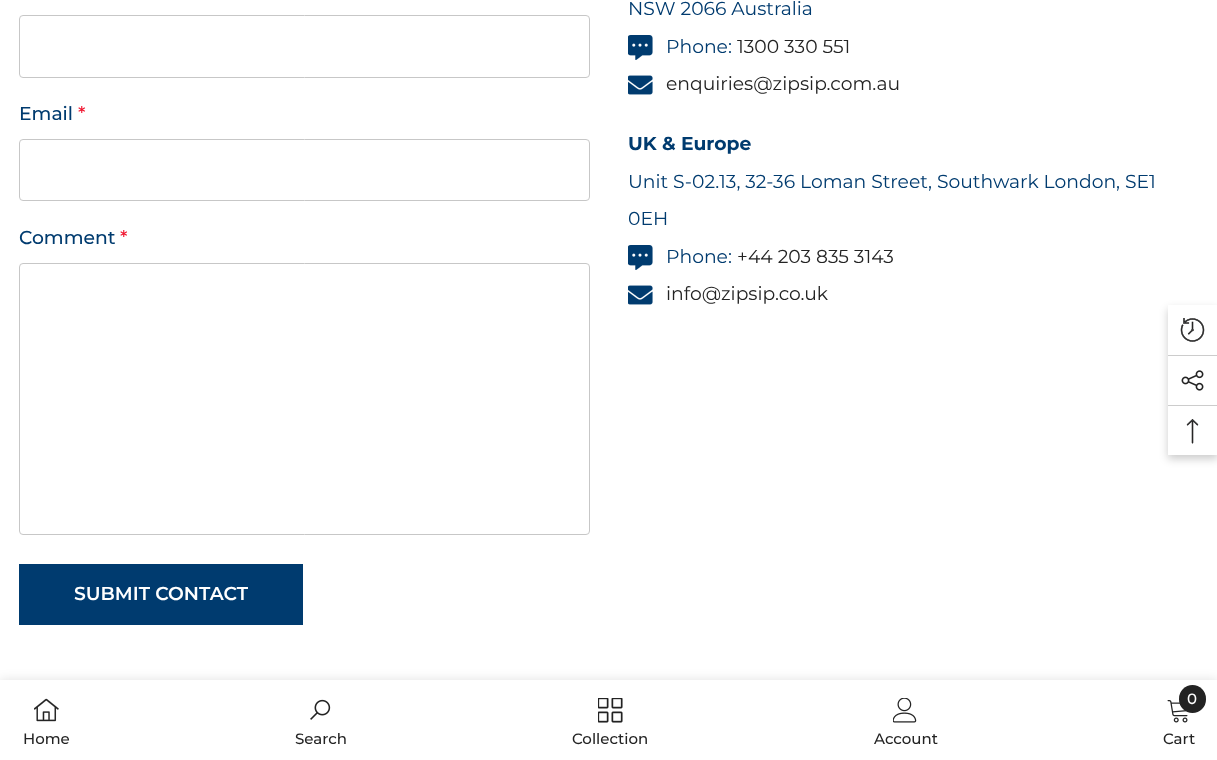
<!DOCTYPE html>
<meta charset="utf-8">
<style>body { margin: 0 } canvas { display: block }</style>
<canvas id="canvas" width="1217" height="760"></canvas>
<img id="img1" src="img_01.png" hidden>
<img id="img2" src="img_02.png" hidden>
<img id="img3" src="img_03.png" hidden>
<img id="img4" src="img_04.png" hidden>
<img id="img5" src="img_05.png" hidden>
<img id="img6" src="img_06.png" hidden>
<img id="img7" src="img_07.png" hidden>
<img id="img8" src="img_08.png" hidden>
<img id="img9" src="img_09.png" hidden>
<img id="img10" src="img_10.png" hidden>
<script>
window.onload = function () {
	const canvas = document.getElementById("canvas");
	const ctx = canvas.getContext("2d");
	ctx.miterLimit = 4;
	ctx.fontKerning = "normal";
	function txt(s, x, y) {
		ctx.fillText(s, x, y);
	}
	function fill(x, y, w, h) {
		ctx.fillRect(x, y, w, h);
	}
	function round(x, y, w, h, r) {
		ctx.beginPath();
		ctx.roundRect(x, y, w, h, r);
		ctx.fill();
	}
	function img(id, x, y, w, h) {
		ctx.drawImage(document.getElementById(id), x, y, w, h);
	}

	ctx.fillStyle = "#FFFFFF";
	fill(0, 0, 1217, 760);
	ctx.beginPath();
	ctx.roundRect(19.5, 15.5, 570, 62, 3.5);
	ctx.strokeStyle = "#C7C7C7";
	ctx.stroke();
	ctx.beginPath();
	ctx.roundRect(19.5, 139.5, 570, 61, 3.5);
	ctx.stroke();
	ctx.beginPath();
	ctx.roundRect(19.5, 263.5, 570, 271, 3.5);
	ctx.stroke();
	ctx.fillStyle = "#003B6F";
	fill(19, 564, 284, 61);
	img("img1", 628, 35, 25, 25);
	img("img2", 628, 75, 25, 20);
	img("img1", 628, 245, 25, 25);
	img("img2", 628, 285, 25, 20);
	ctx.fillStyle = "rgba(0, 0, 0, 0.12)";
	ctx.filter = "blur(5.5px)";
	ctx.beginPath();
	ctx.rect(0, 680, 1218, 80);
	ctx.fill();
	ctx.filter = "none";
	ctx.fillStyle = "#FFFFFF";
	fill(0, 680, 1217, 80);
	img("img3", 34, 698, 25, 24);
	img("img4", 310, 699, 21, 21);
	img("img5", 598, 698, 25, 25);
	img("img6", 893, 698, 24, 25);
	img("img7", 1167, 700, 21, 23);
	ctx.fillStyle = "#232323";
	round(1179, 685, 27, 28, 13.5);
	ctx.save();
	ctx.beginPath();
	ctx.moveTo(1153, 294);
	ctx.lineTo(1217, 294);
	ctx.lineTo(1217, 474);
	ctx.lineTo(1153, 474);
	ctx.closePath();
	ctx.moveTo(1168, 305);
	ctx.lineTo(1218, 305);
	ctx.lineTo(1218, 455);
	ctx.lineTo(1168, 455);
	ctx.closePath();
	ctx.clip("evenodd");
	ctx.fillStyle = "rgba(0, 0, 0, 0.2)";
	ctx.filter = "blur(4.5px)";
	ctx.beginPath();
	ctx.rect(1168, 309, 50, 150);
	ctx.fill();
	ctx.filter = "none";
	ctx.restore();
	img("img8", 1180, 318, 25, 24);
	ctx.fillStyle = "#CCCCCC";
	fill(1168, 355, 49, 1);
	img("img9", 1181, 370, 23, 21);
	fill(1168, 405, 49, 1);
	img("img10", 1186, 419, 13, 25);
	ctx.font = "500 18.75px Montserrat";
	ctx.fillStyle = "#003B6F";
	txt("Email", 19, 120);
	ctx.fillStyle = "#F1152F";
	txt("*", 78, 120);
	ctx.fillStyle = "#003B6F";
	txt("Comment", 19, 244);
	ctx.fillStyle = "#F1152F";
	txt("*", 120, 244);
	ctx.font = "600 18.75px Montserrat";
	ctx.fillStyle = "#FFFFFF";
	txt("SUBMIT CONTACT", 74, 600);
	ctx.font = "18.75px Montserrat";
	ctx.fillStyle = "#003B6F";
	txt("NSW 2066 Australia", 628, 15);
	txt("Phone:", 666, 53);
	ctx.fillStyle = "#232323";
	txt("1300 330 551", 737, 53);
	txt("enquiries@zipsip.com.au", 666, 90);
	ctx.font = "bold 18.75px Montserrat";
	ctx.fillStyle = "#003B6F";
	txt("UK & Europe", 628, 150);
	ctx.font = "18.75px Montserrat";
	txt("Unit S-02.13, 32-36 Loman Street, Southwark London, SE1", 628, 188);
	txt("0EH", 628, 225);
	txt("Phone:", 666, 263);
	ctx.fillStyle = "#232323";
	txt("+44 203 835 3143", 737, 263);
	txt("info@zipsip.co.uk", 666, 300);
	ctx.font = "500 15px Montserrat";
	txt("Home", 23, 744);
	txt("Search", 295, 744);
	txt("Collection", 572, 744);
	txt("Account", 874, 744);
	ctx.fillStyle = "#FFFFFF";
	txt("0", 1187, 704);
	ctx.fillStyle = "#232323";
	txt("Cart", 1163, 744);
};
</script>
